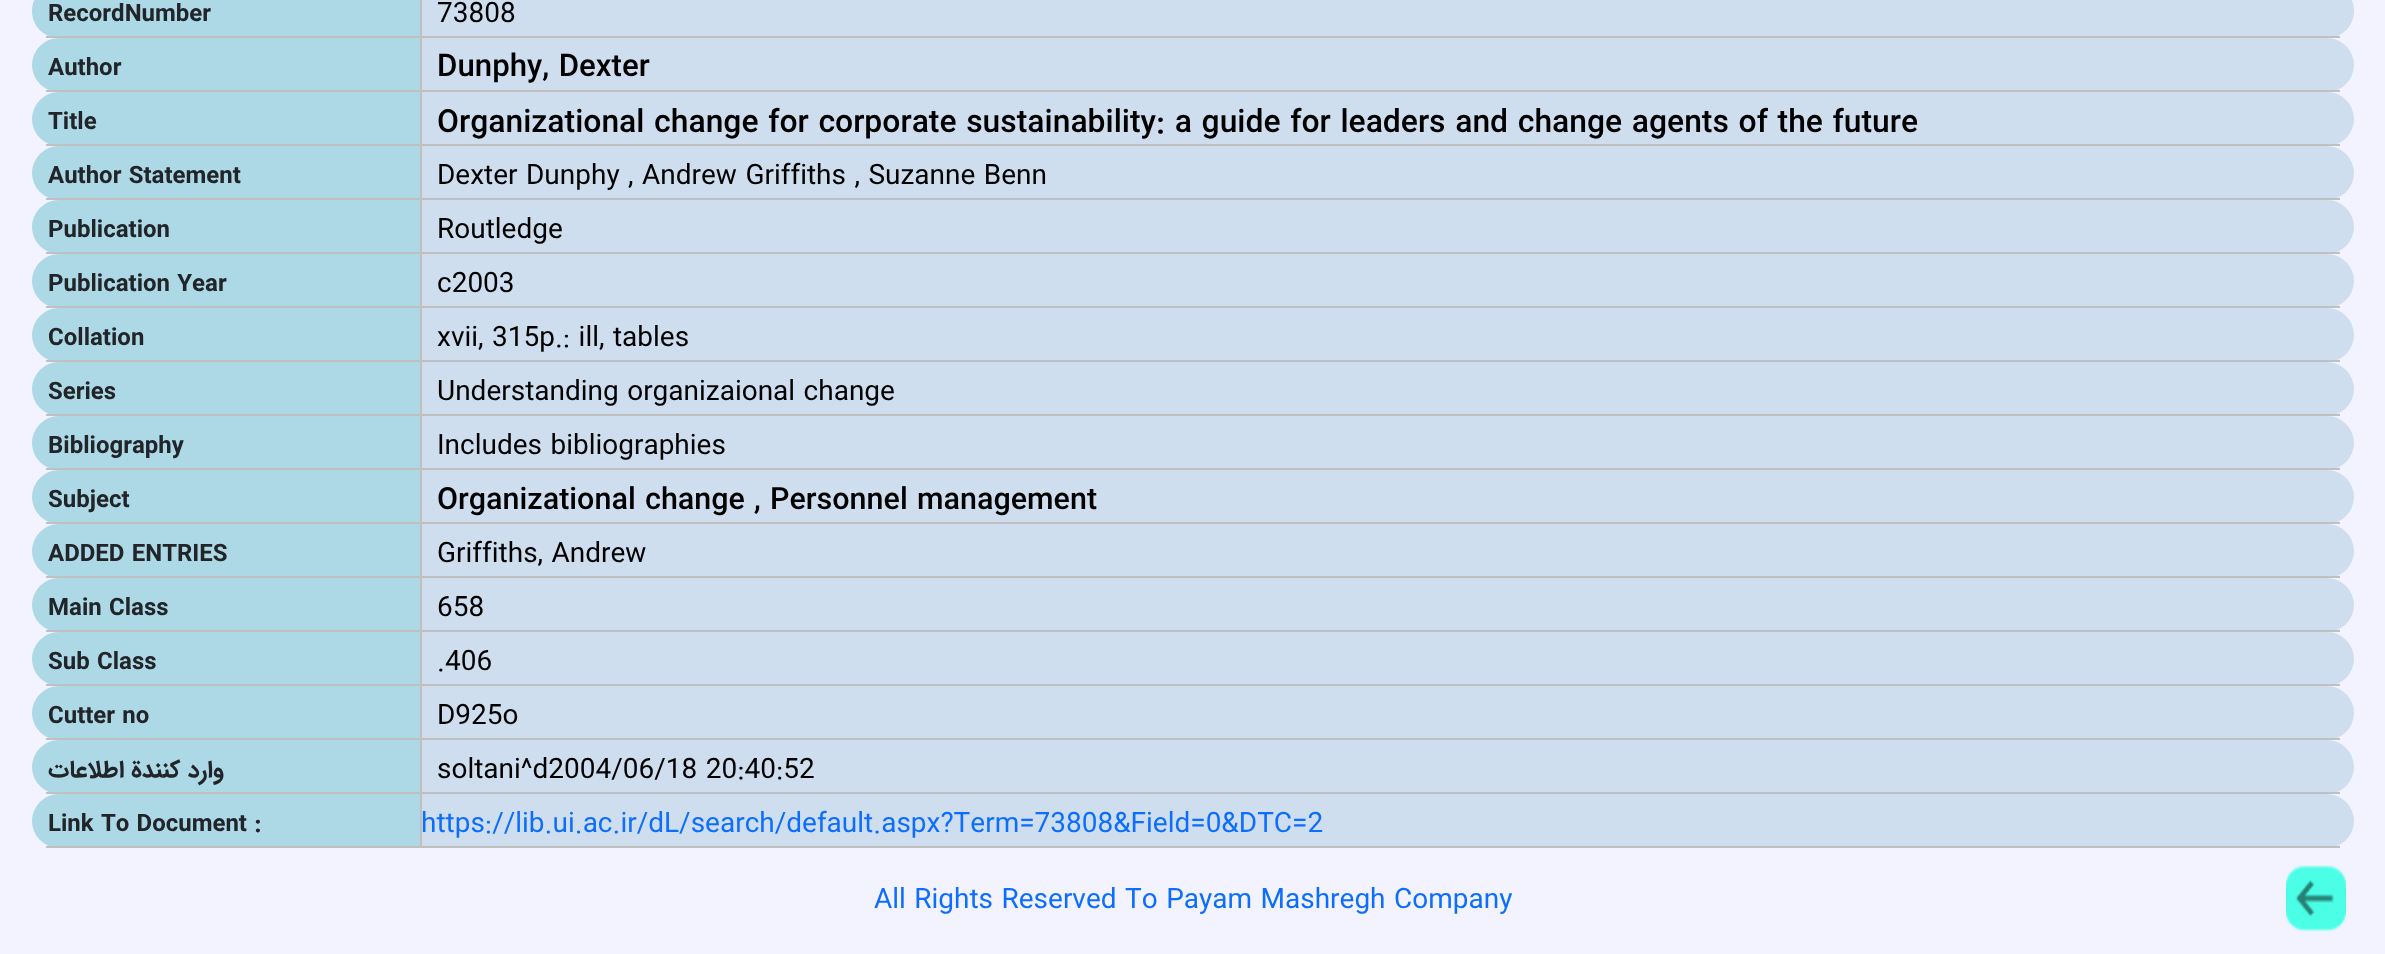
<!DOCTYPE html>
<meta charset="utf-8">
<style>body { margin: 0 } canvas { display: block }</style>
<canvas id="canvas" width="2385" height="954"></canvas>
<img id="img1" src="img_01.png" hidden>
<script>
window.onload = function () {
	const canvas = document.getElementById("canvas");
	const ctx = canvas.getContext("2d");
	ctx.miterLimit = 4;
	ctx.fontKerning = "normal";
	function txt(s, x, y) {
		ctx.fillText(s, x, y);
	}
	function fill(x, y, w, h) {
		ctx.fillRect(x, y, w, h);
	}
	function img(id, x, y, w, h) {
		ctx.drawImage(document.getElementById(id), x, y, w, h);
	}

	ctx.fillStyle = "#F3F3FF";
	fill(0, 0, 2385, 954);
	ctx.fillStyle = "#ADD8E6";
	ctx.beginPath();
	ctx.moveTo(59, -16);
	ctx.lineTo(420, -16);
	ctx.lineTo(420, 38);
	ctx.lineTo(59, 38);
	ctx.bezierCurveTo(44, 38, 32, 26, 32, 11);
	ctx.bezierCurveTo(32, -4, 44, -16, 59, -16);
	ctx.closePath();
	ctx.fill();
	ctx.fillStyle = "#C0C0C0";
	fill(46, 36, 374, 2);
	ctx.fillStyle = "#CEDEEF";
	ctx.beginPath();
	ctx.moveTo(420, -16);
	ctx.lineTo(2327, -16);
	ctx.bezierCurveTo(2342, -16, 2354, -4, 2354, 11);
	ctx.bezierCurveTo(2354, 26, 2342, 38, 2327, 38);
	ctx.lineTo(420, 38);
	ctx.closePath();
	ctx.fill();
	ctx.fillStyle = "#C0C0C0";
	fill(420, 36, 1920, 2);
	fill(420, 0, 2, 38);
	ctx.fillStyle = "#ADD8E6";
	ctx.beginPath();
	ctx.roundRect(32, 38, 388, 54, [27, 0, 0, 27]);
	ctx.fill();
	ctx.fillStyle = "#C0C0C0";
	fill(46, 90, 374, 2);
	ctx.fillStyle = "#CEDEEF";
	ctx.beginPath();
	ctx.roundRect(420, 38, 1934, 54, [0, 27, 27, 0]);
	ctx.fill();
	ctx.fillStyle = "#C0C0C0";
	fill(420, 90, 1920, 2);
	fill(420, 38, 2, 54);
	ctx.fillStyle = "#ADD8E6";
	ctx.beginPath();
	ctx.roundRect(32, 92, 388, 54, [27, 0, 0, 27]);
	ctx.fill();
	ctx.fillStyle = "#C0C0C0";
	fill(46, 144, 374, 2);
	ctx.fillStyle = "#CEDEEF";
	ctx.beginPath();
	ctx.roundRect(420, 92, 1934, 54, [0, 27, 27, 0]);
	ctx.fill();
	ctx.fillStyle = "#C0C0C0";
	fill(420, 144, 1920, 2);
	fill(420, 92, 2, 54);
	ctx.fillStyle = "#ADD8E6";
	ctx.beginPath();
	ctx.roundRect(32, 146, 388, 54, [27, 0, 0, 27]);
	ctx.fill();
	ctx.fillStyle = "#C0C0C0";
	fill(46, 198, 374, 2);
	ctx.fillStyle = "#CEDEEF";
	ctx.beginPath();
	ctx.roundRect(420, 146, 1934, 54, [0, 27, 27, 0]);
	ctx.fill();
	ctx.fillStyle = "#C0C0C0";
	fill(420, 198, 1920, 2);
	fill(420, 146, 2, 54);
	ctx.fillStyle = "#ADD8E6";
	ctx.beginPath();
	ctx.roundRect(32, 200, 388, 54, [27, 0, 0, 27]);
	ctx.fill();
	ctx.fillStyle = "#C0C0C0";
	fill(46, 252, 374, 2);
	ctx.fillStyle = "#CEDEEF";
	ctx.beginPath();
	ctx.roundRect(420, 200, 1934, 54, [0, 27, 27, 0]);
	ctx.fill();
	ctx.fillStyle = "#C0C0C0";
	fill(420, 252, 1920, 2);
	fill(420, 200, 2, 54);
	ctx.fillStyle = "#ADD8E6";
	ctx.beginPath();
	ctx.roundRect(32, 254, 388, 54, [27, 0, 0, 27]);
	ctx.fill();
	ctx.fillStyle = "#C0C0C0";
	fill(46, 306, 374, 2);
	ctx.fillStyle = "#CEDEEF";
	ctx.beginPath();
	ctx.roundRect(420, 254, 1934, 54, [0, 27, 27, 0]);
	ctx.fill();
	ctx.fillStyle = "#C0C0C0";
	fill(420, 306, 1920, 2);
	fill(420, 254, 2, 54);
	ctx.fillStyle = "#ADD8E6";
	ctx.beginPath();
	ctx.roundRect(32, 308, 388, 54, [27, 0, 0, 27]);
	ctx.fill();
	ctx.fillStyle = "#C0C0C0";
	fill(46, 360, 374, 2);
	ctx.fillStyle = "#CEDEEF";
	ctx.beginPath();
	ctx.roundRect(420, 308, 1934, 54, [0, 27, 27, 0]);
	ctx.fill();
	ctx.fillStyle = "#C0C0C0";
	fill(420, 360, 1920, 2);
	fill(420, 308, 2, 54);
	ctx.fillStyle = "#ADD8E6";
	ctx.beginPath();
	ctx.roundRect(32, 362, 388, 54, [27, 0, 0, 27]);
	ctx.fill();
	ctx.fillStyle = "#C0C0C0";
	fill(46, 414, 374, 2);
	ctx.fillStyle = "#CEDEEF";
	ctx.beginPath();
	ctx.roundRect(420, 362, 1934, 54, [0, 27, 27, 0]);
	ctx.fill();
	ctx.fillStyle = "#C0C0C0";
	fill(420, 414, 1920, 2);
	fill(420, 362, 2, 54);
	ctx.fillStyle = "#ADD8E6";
	ctx.beginPath();
	ctx.roundRect(32, 416, 388, 54, [27, 0, 0, 27]);
	ctx.fill();
	ctx.fillStyle = "#C0C0C0";
	fill(46, 468, 374, 2);
	ctx.fillStyle = "#CEDEEF";
	ctx.beginPath();
	ctx.roundRect(420, 416, 1934, 54, [0, 27, 27, 0]);
	ctx.fill();
	ctx.fillStyle = "#C0C0C0";
	fill(420, 468, 1920, 2);
	fill(420, 416, 2, 54);
	ctx.fillStyle = "#ADD8E6";
	ctx.beginPath();
	ctx.roundRect(32, 470, 388, 54, [27, 0, 0, 27]);
	ctx.fill();
	ctx.fillStyle = "#C0C0C0";
	fill(46, 522, 374, 2);
	ctx.fillStyle = "#CEDEEF";
	ctx.beginPath();
	ctx.roundRect(420, 470, 1934, 54, [0, 27, 27, 0]);
	ctx.fill();
	ctx.fillStyle = "#C0C0C0";
	fill(420, 522, 1920, 2);
	fill(420, 470, 2, 54);
	ctx.fillStyle = "#ADD8E6";
	ctx.beginPath();
	ctx.roundRect(32, 524, 388, 54, [27, 0, 0, 27]);
	ctx.fill();
	ctx.fillStyle = "#C0C0C0";
	fill(46, 576, 374, 2);
	ctx.fillStyle = "#CEDEEF";
	ctx.beginPath();
	ctx.roundRect(420, 524, 1934, 54, [0, 27, 27, 0]);
	ctx.fill();
	ctx.fillStyle = "#C0C0C0";
	fill(420, 576, 1920, 2);
	fill(420, 524, 2, 54);
	ctx.fillStyle = "#ADD8E6";
	ctx.beginPath();
	ctx.roundRect(32, 578, 388, 54, [27, 0, 0, 27]);
	ctx.fill();
	ctx.fillStyle = "#C0C0C0";
	fill(46, 630, 374, 2);
	ctx.fillStyle = "#CEDEEF";
	ctx.beginPath();
	ctx.roundRect(420, 578, 1934, 54, [0, 27, 27, 0]);
	ctx.fill();
	ctx.fillStyle = "#C0C0C0";
	fill(420, 630, 1920, 2);
	fill(420, 578, 2, 54);
	ctx.fillStyle = "#ADD8E6";
	ctx.beginPath();
	ctx.roundRect(32, 632, 388, 54, [27, 0, 0, 27]);
	ctx.fill();
	ctx.fillStyle = "#C0C0C0";
	fill(46, 684, 374, 2);
	ctx.fillStyle = "#CEDEEF";
	ctx.beginPath();
	ctx.roundRect(420, 632, 1934, 54, [0, 27, 27, 0]);
	ctx.fill();
	ctx.fillStyle = "#C0C0C0";
	fill(420, 684, 1920, 2);
	fill(420, 632, 2, 54);
	ctx.fillStyle = "#ADD8E6";
	ctx.beginPath();
	ctx.roundRect(32, 686, 388, 54, [27, 0, 0, 27]);
	ctx.fill();
	ctx.fillStyle = "#C0C0C0";
	fill(46, 738, 374, 2);
	ctx.fillStyle = "#CEDEEF";
	ctx.beginPath();
	ctx.roundRect(420, 686, 1934, 54, [0, 27, 27, 0]);
	ctx.fill();
	ctx.fillStyle = "#C0C0C0";
	fill(420, 738, 1920, 2);
	fill(420, 686, 2, 54);
	ctx.fillStyle = "#ADD8E6";
	ctx.beginPath();
	ctx.roundRect(32, 740, 388, 54, [27, 0, 0, 27]);
	ctx.fill();
	ctx.fillStyle = "#C0C0C0";
	fill(46, 792, 374, 2);
	ctx.fillStyle = "#CEDEEF";
	ctx.beginPath();
	ctx.roundRect(420, 740, 1934, 54, [0, 27, 27, 0]);
	ctx.fill();
	ctx.fillStyle = "#C0C0C0";
	fill(420, 792, 1920, 2);
	fill(420, 740, 2, 54);
	ctx.fillStyle = "#ADD8E6";
	ctx.beginPath();
	ctx.roundRect(32, 794, 388, 54, [27, 0, 0, 27]);
	ctx.fill();
	ctx.fillStyle = "#C0C0C0";
	fill(46, 846, 374, 2);
	ctx.fillStyle = "#CEDEEF";
	ctx.beginPath();
	ctx.roundRect(420, 794, 1934, 54, [0, 27, 27, 0]);
	ctx.fill();
	ctx.fillStyle = "#C0C0C0";
	fill(420, 846, 1920, 2);
	fill(420, 794, 2, 54);
	img("img1", 2286, 865, 60, 68);
	ctx.font = "bold 24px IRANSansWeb";
	ctx.fillStyle = "#212529";
	txt("RecordNumber", 48, 21);
	ctx.font = "28px IRANSansWeb";
	ctx.fillStyle = "#000000";
	txt("73808", 437, 22);
	ctx.font = "bold 24px IRANSansWeb";
	ctx.fillStyle = "#212529";
	txt("Author", 48, 75);
	ctx.font = "500 31.25px IRANSansWeb";
	ctx.fillStyle = "#000000";
	txt("Dunphy, Dexter", 437, 76);
	ctx.font = "bold 24px IRANSansWeb";
	ctx.fillStyle = "#212529";
	txt("Title", 48, 129);
	ctx.font = "500 31.85px IRANSansWeb";
	ctx.fillStyle = "#000000";
	txt("Organizational change for corporate sustainability: a guide for leaders and change agents of the future", 437, 132);
	ctx.font = "bold 24px IRANSansWeb";
	ctx.fillStyle = "#212529";
	txt("Author Statement", 48, 183);
	ctx.font = "28px IRANSansWeb";
	ctx.fillStyle = "#000000";
	txt("Dexter Dunphy , Andrew Griffiths , Suzanne Benn", 437, 184);
	ctx.font = "bold 24px IRANSansWeb";
	ctx.fillStyle = "#212529";
	txt("Publication", 48, 237);
	ctx.font = "28px IRANSansWeb";
	ctx.fillStyle = "#000000";
	txt("Routledge", 437, 238);
	ctx.font = "bold 24px IRANSansWeb";
	ctx.fillStyle = "#212529";
	txt("Publication Year", 48, 291);
	ctx.font = "28px IRANSansWeb";
	ctx.fillStyle = "#000000";
	txt("c2003", 437, 292);
	ctx.font = "bold 24px IRANSansWeb";
	ctx.fillStyle = "#212529";
	txt("Collation", 48, 345);
	ctx.font = "28px IRANSansWeb";
	ctx.fillStyle = "#000000";
	txt("xvii, 315p.: ill, tables", 437, 346);
	ctx.font = "bold 24px IRANSansWeb";
	ctx.fillStyle = "#212529";
	txt("Series", 48, 399);
	ctx.font = "28px IRANSansWeb";
	ctx.fillStyle = "#000000";
	txt("Understanding organizaional change", 437, 400);
	ctx.font = "bold 24px IRANSansWeb";
	ctx.fillStyle = "#212529";
	txt("Bibliography", 48, 453);
	ctx.font = "28px IRANSansWeb";
	ctx.fillStyle = "#000000";
	txt("Includes bibliographies", 437, 454);
	ctx.font = "bold 24px IRANSansWeb";
	ctx.fillStyle = "#212529";
	txt("Subject", 48, 507);
	ctx.font = "500 30.5px IRANSansWeb";
	ctx.fillStyle = "#000000";
	txt("Organizational change", 437, 509);
	txt(", Personnel management", 754, 509);
	ctx.font = "bold 24px IRANSansWeb";
	ctx.fillStyle = "#212529";
	txt("ADDED ENTRIES", 48, 561);
	ctx.font = "28px IRANSansWeb";
	ctx.fillStyle = "#000000";
	txt("Griffiths, Andrew", 437, 562);
	ctx.font = "bold 24px IRANSansWeb";
	ctx.fillStyle = "#212529";
	txt("Main Class", 48, 615);
	ctx.font = "28px IRANSansWeb";
	ctx.fillStyle = "#000000";
	txt("658", 437, 616);
	ctx.font = "bold 24px IRANSansWeb";
	ctx.fillStyle = "#212529";
	txt("Sub Class", 48, 669);
	ctx.font = "28px IRANSansWeb";
	ctx.fillStyle = "#000000";
	txt(".406", 437, 670);
	ctx.font = "bold 24px IRANSansWeb";
	ctx.fillStyle = "#212529";
	txt("Cutter no", 48, 723);
	ctx.font = "28px IRANSansWeb";
	ctx.fillStyle = "#000000";
	txt("D925o", 437, 724);
	ctx.direction = "rtl";
	ctx.font = "bold 24px IRANSansWeb";
	ctx.fillStyle = "#212529";
	txt("وارد كنندة اطلاعات", 224, 777);
	ctx.direction = "ltr";
	ctx.font = "28px IRANSansWeb";
	ctx.fillStyle = "#000000";
	txt("soltani^d2004/06/18 20:40:52", 437, 778);
	ctx.font = "bold 24px IRANSansWeb";
	ctx.fillStyle = "#212529";
	txt("Link To Document :", 48, 831);
	ctx.font = "28px IRANSansWeb";
	ctx.fillStyle = "#0D6EFD";
	txt("https://lib.ui.ac.ir/dL/search/default.aspx?Term=73808&Field=0&DTC=2", 421, 832);
	txt("All Rights Reserved To Payam Mashregh Company", 874, 908);
};
</script>
